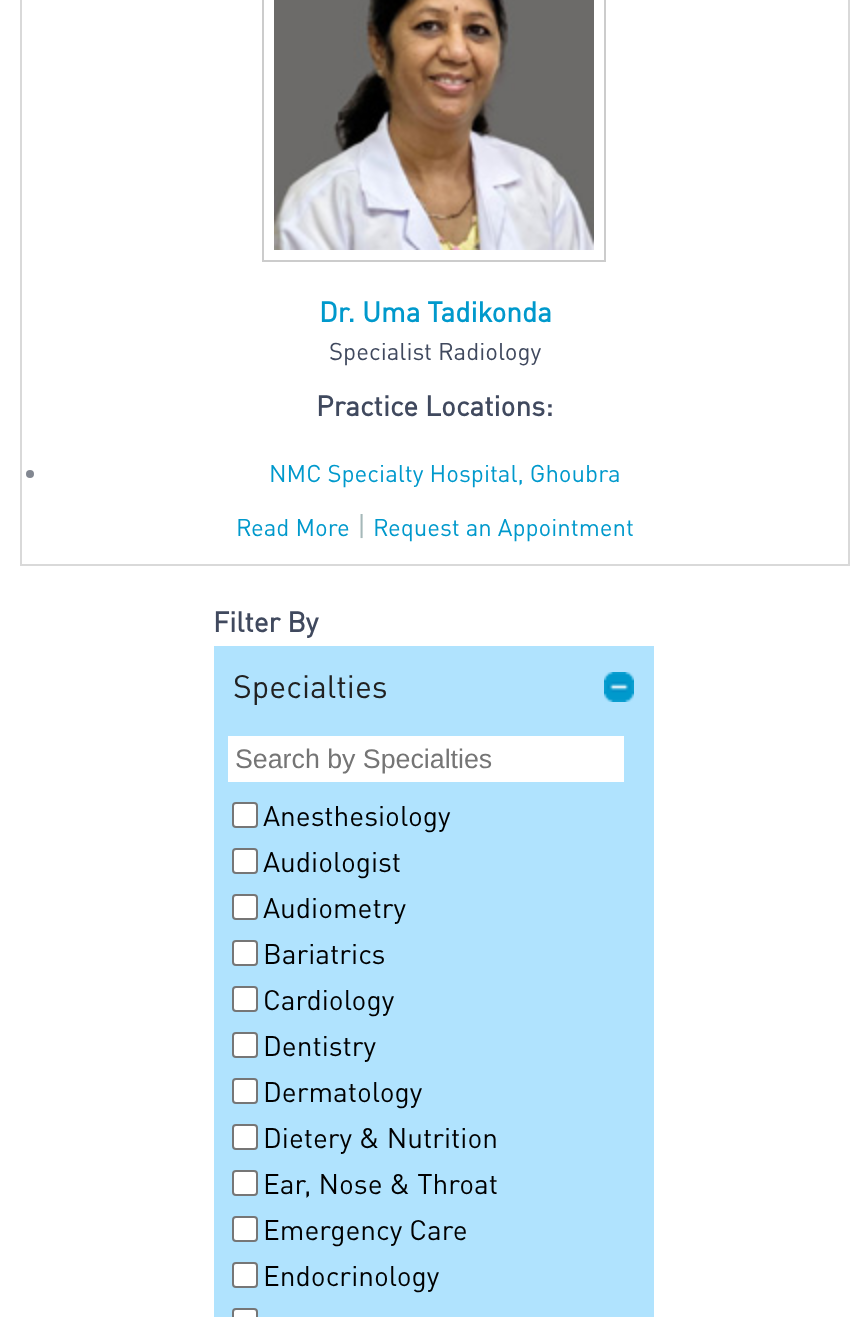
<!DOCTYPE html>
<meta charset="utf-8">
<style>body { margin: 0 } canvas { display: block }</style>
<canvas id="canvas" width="866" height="1317"></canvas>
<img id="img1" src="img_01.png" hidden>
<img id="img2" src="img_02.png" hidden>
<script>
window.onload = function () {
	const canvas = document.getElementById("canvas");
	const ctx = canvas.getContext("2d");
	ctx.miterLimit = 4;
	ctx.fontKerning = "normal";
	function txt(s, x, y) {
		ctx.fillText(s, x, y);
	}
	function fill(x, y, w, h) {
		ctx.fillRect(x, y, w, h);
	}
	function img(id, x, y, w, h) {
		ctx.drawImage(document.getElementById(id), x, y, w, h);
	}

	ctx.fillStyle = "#FFFFFF";
	fill(0, 0, 866, 1317);
	ctx.strokeStyle = "#D9D9D9";
	ctx.lineWidth = 2;
	ctx.strokeRect(21, -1, 828, 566);
	ctx.strokeStyle = "#CCCCCC";
	ctx.strokeRect(263, -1, 342, 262);
	img("img1", 274, 0, 320, 250);
	ctx.fillStyle = "#828791";
	ctx.beginPath();
	ctx.arc(30, 474, 4, 0, Math.PI * 2);
	ctx.fill();
	ctx.fillStyle = "#B0E3FE";
	fill(214, 646, 440, 671);
	img("img2", 604, 672, 30, 30);
	ctx.fillStyle = "#FFFFFF";
	fill(228, 736, 396, 46);
	ctx.beginPath();
	ctx.roundRect(233, 803, 24, 24, 3);
	ctx.fill();
	ctx.strokeStyle = "#767676";
	ctx.stroke();
	ctx.beginPath();
	ctx.roundRect(233, 849, 24, 24, 3);
	ctx.fill();
	ctx.stroke();
	ctx.beginPath();
	ctx.roundRect(233, 895, 24, 24, 3);
	ctx.fill();
	ctx.stroke();
	ctx.beginPath();
	ctx.roundRect(233, 941, 24, 24, 3);
	ctx.fill();
	ctx.stroke();
	ctx.beginPath();
	ctx.roundRect(233, 987, 24, 24, 3);
	ctx.fill();
	ctx.stroke();
	ctx.beginPath();
	ctx.roundRect(233, 1033, 24, 24, 3);
	ctx.fill();
	ctx.stroke();
	ctx.beginPath();
	ctx.roundRect(233, 1079, 24, 24, 3);
	ctx.fill();
	ctx.stroke();
	ctx.beginPath();
	ctx.roundRect(233, 1125, 24, 24, 3);
	ctx.fill();
	ctx.stroke();
	ctx.beginPath();
	ctx.roundRect(233, 1171, 24, 24, 3);
	ctx.fill();
	ctx.stroke();
	ctx.beginPath();
	ctx.roundRect(233, 1217, 24, 24, 3);
	ctx.fill();
	ctx.stroke();
	ctx.beginPath();
	ctx.roundRect(233, 1263, 24, 24, 3);
	ctx.fill();
	ctx.stroke();
	ctx.beginPath();
	ctx.roundRect(233, 1309, 24, 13, 3);
	ctx.fill();
	ctx.stroke();
	ctx.font = "bold 28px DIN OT";
	ctx.fillStyle = "#0099CC";
	txt("Dr. Uma Tadikonda", 319, 322);
	ctx.font = "24px DIN OT";
	ctx.fillStyle = "#40495E";
	txt("Specialist Radiology", 329, 360);
	ctx.font = "bold 28px DIN OT";
	txt("Practice Locations:", 316, 416);
	ctx.font = "24px DIN OT";
	ctx.fillStyle = "#0099CC";
	txt("NMC Specialty Hospital, Ghoubra", 269, 482);
	txt("Read More", 236, 536);
	ctx.font = "28px DIN OT";
	ctx.fillStyle = "#A5B8B9";
	txt("|", 357, 536);
	ctx.font = "24px DIN OT";
	ctx.fillStyle = "#0099CC";
	txt("Request an Appointment", 373, 536);
	ctx.font = "bold 28px DIN OT";
	ctx.fillStyle = "#40495E";
	txt("Filter By", 213, 632);
	ctx.font = "32px DIN OT";
	ctx.fillStyle = "#212121";
	txt("Specialties", 233, 698);
	ctx.font = "26.75px Liberation Sans";
	ctx.fillStyle = "#757575";
	txt("Search by Specialties", 235, 768);
	ctx.font = "28px DIN OT";
	ctx.fillStyle = "#000000";
	txt("Anesthesiology", 263, 826);
	txt("Audiologist", 263, 872);
	txt("Audiometry", 263, 918);
	txt("Bariatrics", 263, 964);
	txt("Cardiology", 263, 1010);
	txt("Dentistry", 263, 1056);
	txt("Dermatology", 263, 1102);
	txt("Dietery & Nutrition", 263, 1148);
	txt("Ear, Nose & Throat", 263, 1194);
	txt("Emergency Care", 263, 1240);
	txt("Endocrinology", 263, 1286);
};
</script>
